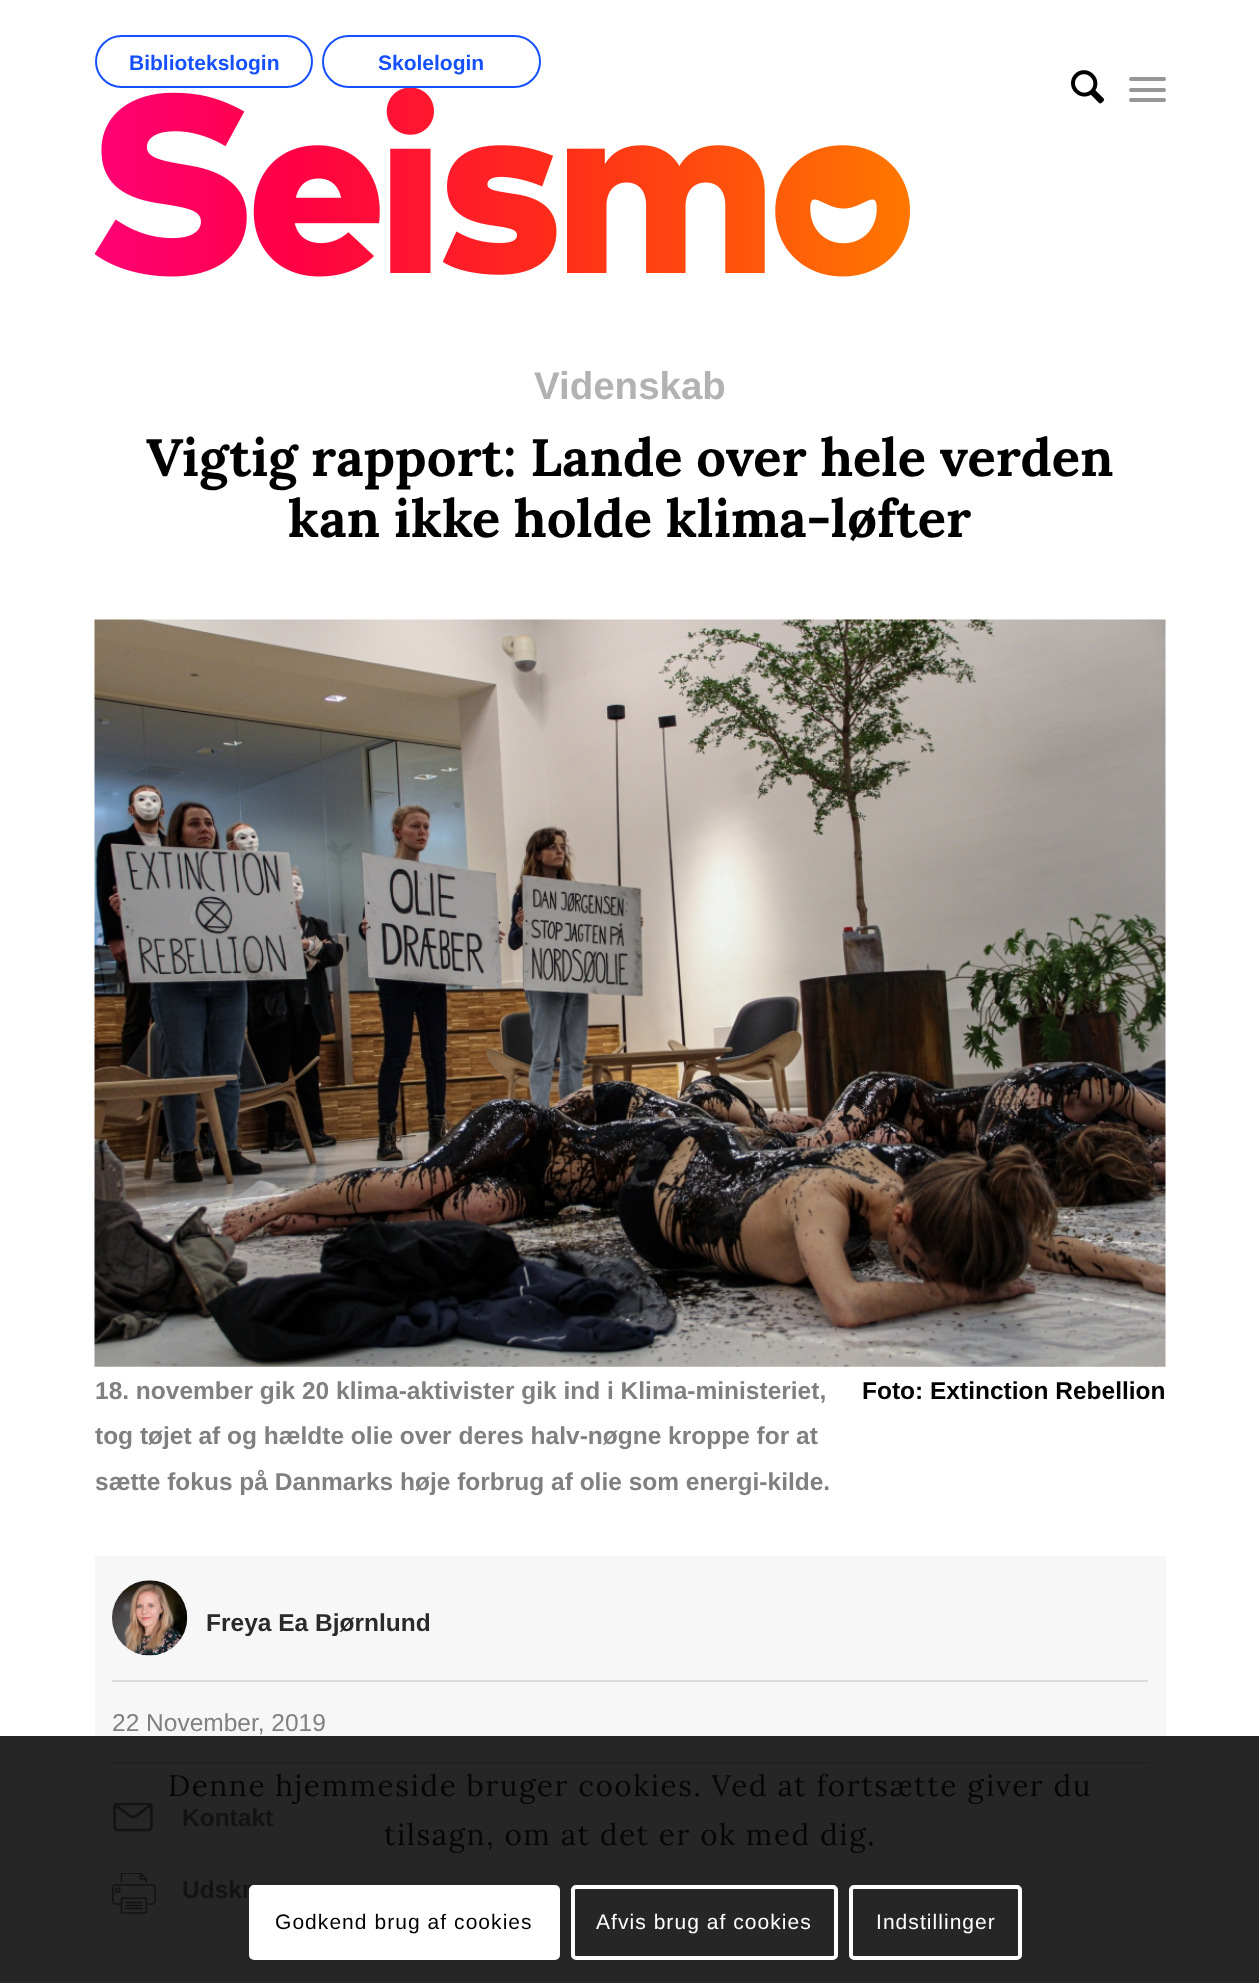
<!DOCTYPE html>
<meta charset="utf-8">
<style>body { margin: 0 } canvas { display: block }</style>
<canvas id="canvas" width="1259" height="1983"></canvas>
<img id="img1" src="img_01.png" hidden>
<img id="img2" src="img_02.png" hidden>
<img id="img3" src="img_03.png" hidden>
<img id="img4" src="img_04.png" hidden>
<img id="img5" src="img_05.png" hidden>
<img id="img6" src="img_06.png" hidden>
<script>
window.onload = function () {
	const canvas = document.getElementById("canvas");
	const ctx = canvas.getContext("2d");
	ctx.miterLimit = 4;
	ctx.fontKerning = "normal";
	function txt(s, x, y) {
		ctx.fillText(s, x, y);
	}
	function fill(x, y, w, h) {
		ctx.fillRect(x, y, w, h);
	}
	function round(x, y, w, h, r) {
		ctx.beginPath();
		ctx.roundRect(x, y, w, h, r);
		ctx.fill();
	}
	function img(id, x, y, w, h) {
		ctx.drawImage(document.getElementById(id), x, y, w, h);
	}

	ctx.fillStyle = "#FFFFFF";
	fill(0, 0, 1259, 1983);
	ctx.fillStyle = "#262626";
	fill(0, 1736, 1259, 247);
	ctx.beginPath();
	ctx.roundRect(96, 36, 216, 51, 25.5);
	ctx.strokeStyle = "#1550FF";
	ctx.lineWidth = 2;
	ctx.stroke();
	ctx.beginPath();
	ctx.roundRect(323, 36, 217, 51, 25.5);
	ctx.stroke();
	img("img1", 95, 88, 815, 189);
	img("img2", 1071, 70, 34, 34);
	ctx.fillStyle = "#969696";
	round(1129, 88, 37, 4, 2);
	round(1129, 77, 37, 4, 2);
	round(1129, 98, 37, 4, 2);
	img("img3", 94, 619, 1072, 748);
	ctx.fillStyle = "#F7F7F7";
	fill(95, 1556, 1071, 180);
	img("img4", 112, 1580, 76, 76);
	ctx.fillStyle = "#DDDDDD";
	fill(112, 1680, 1036, 2);
	ctx.fillStyle = "#212121";
	fill(112, 1762, 1036, 2);
	img("img5", 113, 1803, 40, 29);
	img("img6", 112, 1873, 44, 41);
	ctx.beginPath();
	ctx.roundRect(573, 1887, 263, 71, 3);
	ctx.strokeStyle = "#FFFFFF";
	ctx.lineWidth = 4;
	ctx.stroke();
	ctx.beginPath();
	ctx.roundRect(851, 1887, 169, 71, 3);
	ctx.stroke();
	ctx.font = "bold 21px Liberation Sans";
	ctx.fillStyle = "#1550FF";
	txt("Bibliotekslogin", 129, 70);
	txt("Skolelogin", 378, 70);
	ctx.font = "bold 38.5px Liberation Sans";
	ctx.fillStyle = "#B2B2B2";
	txt("Videnskab", 534, 399);
	ctx.font = "bold 52.5px Lora";
	ctx.fillStyle = "#000000";
	txt("Vigtig rapport: Lande over hele verden", 146, 476);
	txt("kan ikke holde klima-løfter", 288, 537);
	ctx.font = "bold 24.5px Liberation Sans";
	ctx.fillStyle = "#808080";
	txt("18. november gik 20 klima-aktivister gik ind i Klima-ministeriet,", 95, 1399);
	ctx.save();
	ctx.beginPath();
	ctx.rect(95, 1367, 738, 136);
	ctx.clip();
	txt("tog tøjet af og hældte olie over deres halv-nøgne kroppe for at", 95, 1444);
	ctx.restore();
	txt("sætte fokus på Danmarks høje forbrug af olie som energi-kilde.", 95, 1490);
	ctx.fillStyle = "#000000";
	txt("Foto: Extinction Rebellion", 862, 1399);
	ctx.fillStyle = "#2A2A2A";
	txt("Freya Ea Bjørnlund", 206, 1631);
	ctx.font = "24.5px Liberation Sans";
	ctx.fillStyle = "#808080";
	txt("22 November, 2019", 112, 1731);
	ctx.font = "bold 24.5px Liberation Sans";
	ctx.fillStyle = "#131313";
	txt("Kontakt", 182, 1826);
	txt("Udskr", 182, 1898);
	ctx.letterSpacing = "1.5px";
	ctx.font = "29.75px Lora";
	ctx.fillStyle = "#060606";
	txt("Denne hjemmeside bruger cookies. Ved at fortsætte giver du", 168, 1796);
	txt("tilsagn, om at det er ok med dig.", 384, 1845);
	ctx.fillStyle = "#FFFFFF";
	round(249, 1885, 311, 75, 5);
	ctx.letterSpacing = "1.05px";
	ctx.font = "21px Liberation Sans";
	ctx.fillStyle = "#000000";
	txt("Godkend brug af cookies", 275, 1929);
	ctx.fillStyle = "#FFFFFF";
	txt("Afvis brug af cookies", 596, 1929);
	txt("Indstillinger", 876, 1929);
};
</script>
